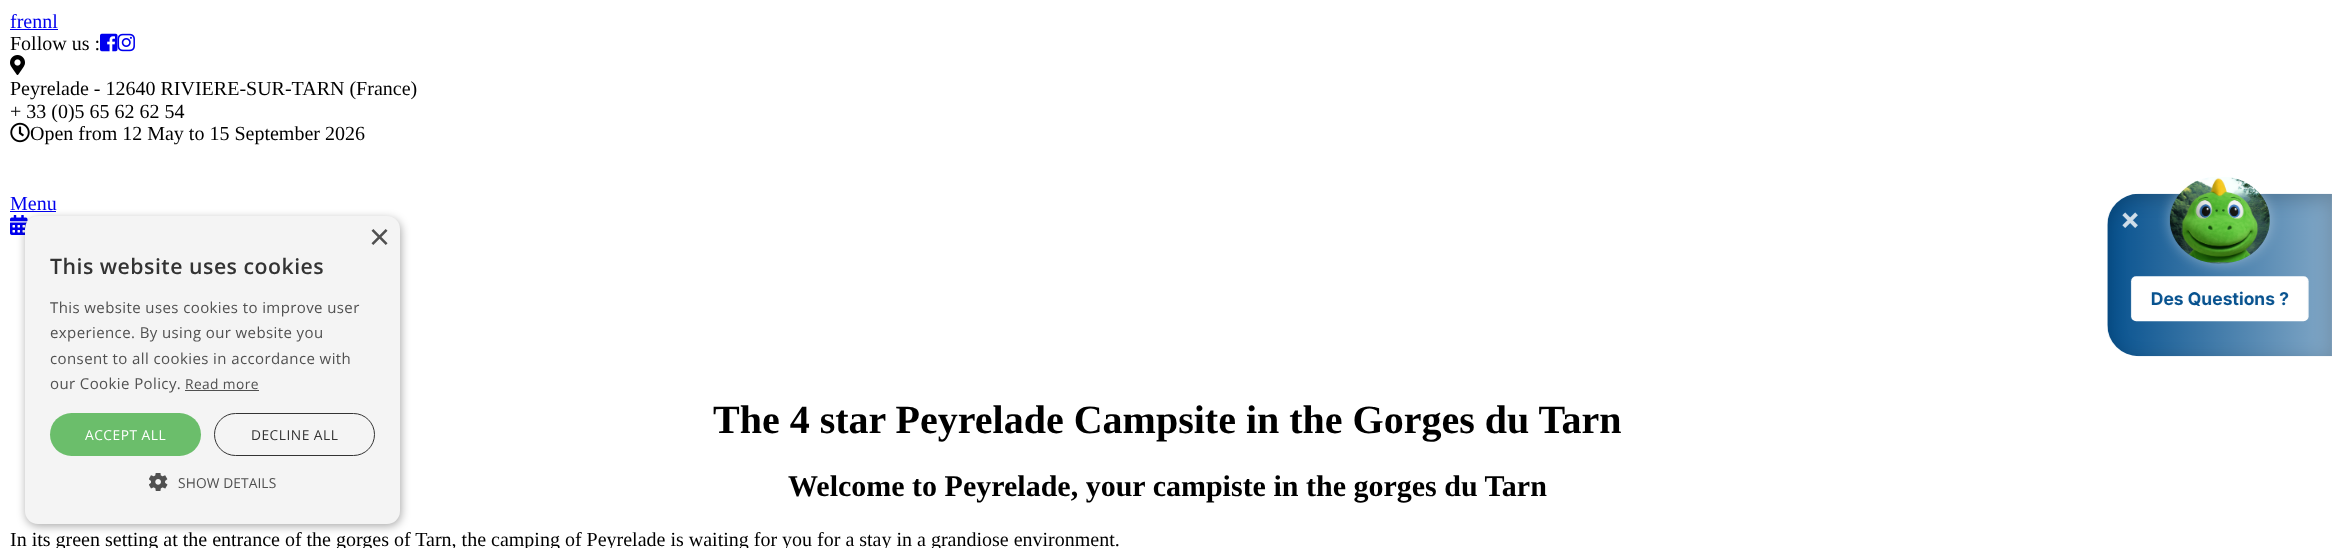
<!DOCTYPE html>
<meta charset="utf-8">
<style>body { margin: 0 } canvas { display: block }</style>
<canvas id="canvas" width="2334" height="548"></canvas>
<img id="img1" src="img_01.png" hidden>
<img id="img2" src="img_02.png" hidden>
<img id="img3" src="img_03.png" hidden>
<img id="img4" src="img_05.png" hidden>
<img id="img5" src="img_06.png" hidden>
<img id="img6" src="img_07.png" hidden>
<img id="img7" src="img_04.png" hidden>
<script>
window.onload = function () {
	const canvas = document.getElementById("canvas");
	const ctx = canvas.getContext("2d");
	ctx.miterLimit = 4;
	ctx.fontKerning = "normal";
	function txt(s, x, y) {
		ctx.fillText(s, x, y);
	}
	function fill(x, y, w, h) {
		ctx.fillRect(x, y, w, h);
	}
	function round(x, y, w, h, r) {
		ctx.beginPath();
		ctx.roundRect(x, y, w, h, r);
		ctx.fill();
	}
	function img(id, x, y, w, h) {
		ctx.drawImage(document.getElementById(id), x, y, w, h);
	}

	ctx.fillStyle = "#FFFFFF";
	fill(0, 0, 2334, 548);
	ctx.fillStyle = "#0000EE";
	fill(10, 29, 48, 1);
	img("img1", 100, 33, 18, 19);
	img("img2", 117, 33, 18, 19);
	img("img3", 10, 55, 15, 20);
	fill(10, 211, 46, 1);
	img("img4", 10, 215, 18, 20);
	img("img5", 2107, 177, 225, 180);
	ctx.fillStyle = "rgba(0, 0, 0, 0.35)";
	ctx.filter = "blur(5px)";
	ctx.beginPath();
	ctx.roundRect(26, 219, 375, 307, 13);
	ctx.fill();
	ctx.filter = "none";
	ctx.fillStyle = "#F4F4F4";
	round(25, 216, 375, 308, 13);
	ctx.fillStyle = "#505050";
	fill(185, 390, 74, 1);
	ctx.fillStyle = "#6BBE6B";
	round(50, 413, 151, 43, 21.5);
	ctx.beginPath();
	ctx.roundRect(214.5, 413.5, 160, 42, 21);
	ctx.strokeStyle = "#333333";
	ctx.stroke();
	img("img6", 149, 473, 19, 18);
	ctx.font = "20px Liberation Serif";
	ctx.fillStyle = "#0000EE";
	txt("frennl", 10, 28);
	ctx.fillStyle = "#000000";
	txt("Follow us :", 10, 50);
	txt("Peyrelade - 12640 RIVIERE-SUR-TARN (France)", 10, 95);
	txt("+ 33 (0)5 65 62 62 54", 10, 118);
	img("img7", 10, 122, 20, 21);
	txt("Open from 12 May to 15 September 2026", 30, 140);
	ctx.fillStyle = "#0000EE";
	txt("Menu", 10, 210);
	ctx.font = "bold 40px Liberation Serif";
	ctx.fillStyle = "#000000";
	txt("The 4 star Peyrelade Campsite in the Gorges du Tarn", 713, 433);
	ctx.font = "bold 30px Liberation Serif";
	txt("Welcome to Peyrelade, your campiste in the gorges du Tarn", 788, 496);
	ctx.font = "20px Liberation Serif";
	txt("In its green setting at the entrance of the gorges of Tarn, the camping of Peyrelade is waiting for you for a stay in a grandiose environment.", 10, 546);
	ctx.font = "36px Liberation Sans";
	ctx.fillStyle = "#505050";
	txt("×", 369, 249);
	ctx.letterSpacing = "0.5px";
	ctx.font = "600 21.25px Open Sans";
	ctx.fillStyle = "#333333";
	txt("This website uses cookies", 50, 274);
	ctx.letterSpacing = "0.4px";
	ctx.font = "15px Open Sans";
	ctx.fillStyle = "#505050";
	txt("This website uses cookies to improve user", 50, 313);
	txt("experience. By using our website you", 50, 338);
	txt("consent to all cookies in accordance with", 50, 364);
	txt("our Cookie Policy.", 50, 389);
	ctx.font = "13.75px Open Sans";
	txt("Read more", 185, 389);
	ctx.letterSpacing = "0.5px";
	ctx.fillStyle = "#FFFFFF";
	txt("ACCEPT ALL", 85, 440);
	ctx.fillStyle = "#333333";
	txt("DECLINE ALL", 251, 440);
	ctx.letterSpacing = "0.1px";
	ctx.fillStyle = "#505050";
	txt("SHOW DETAILS", 178, 488);
};
</script>
